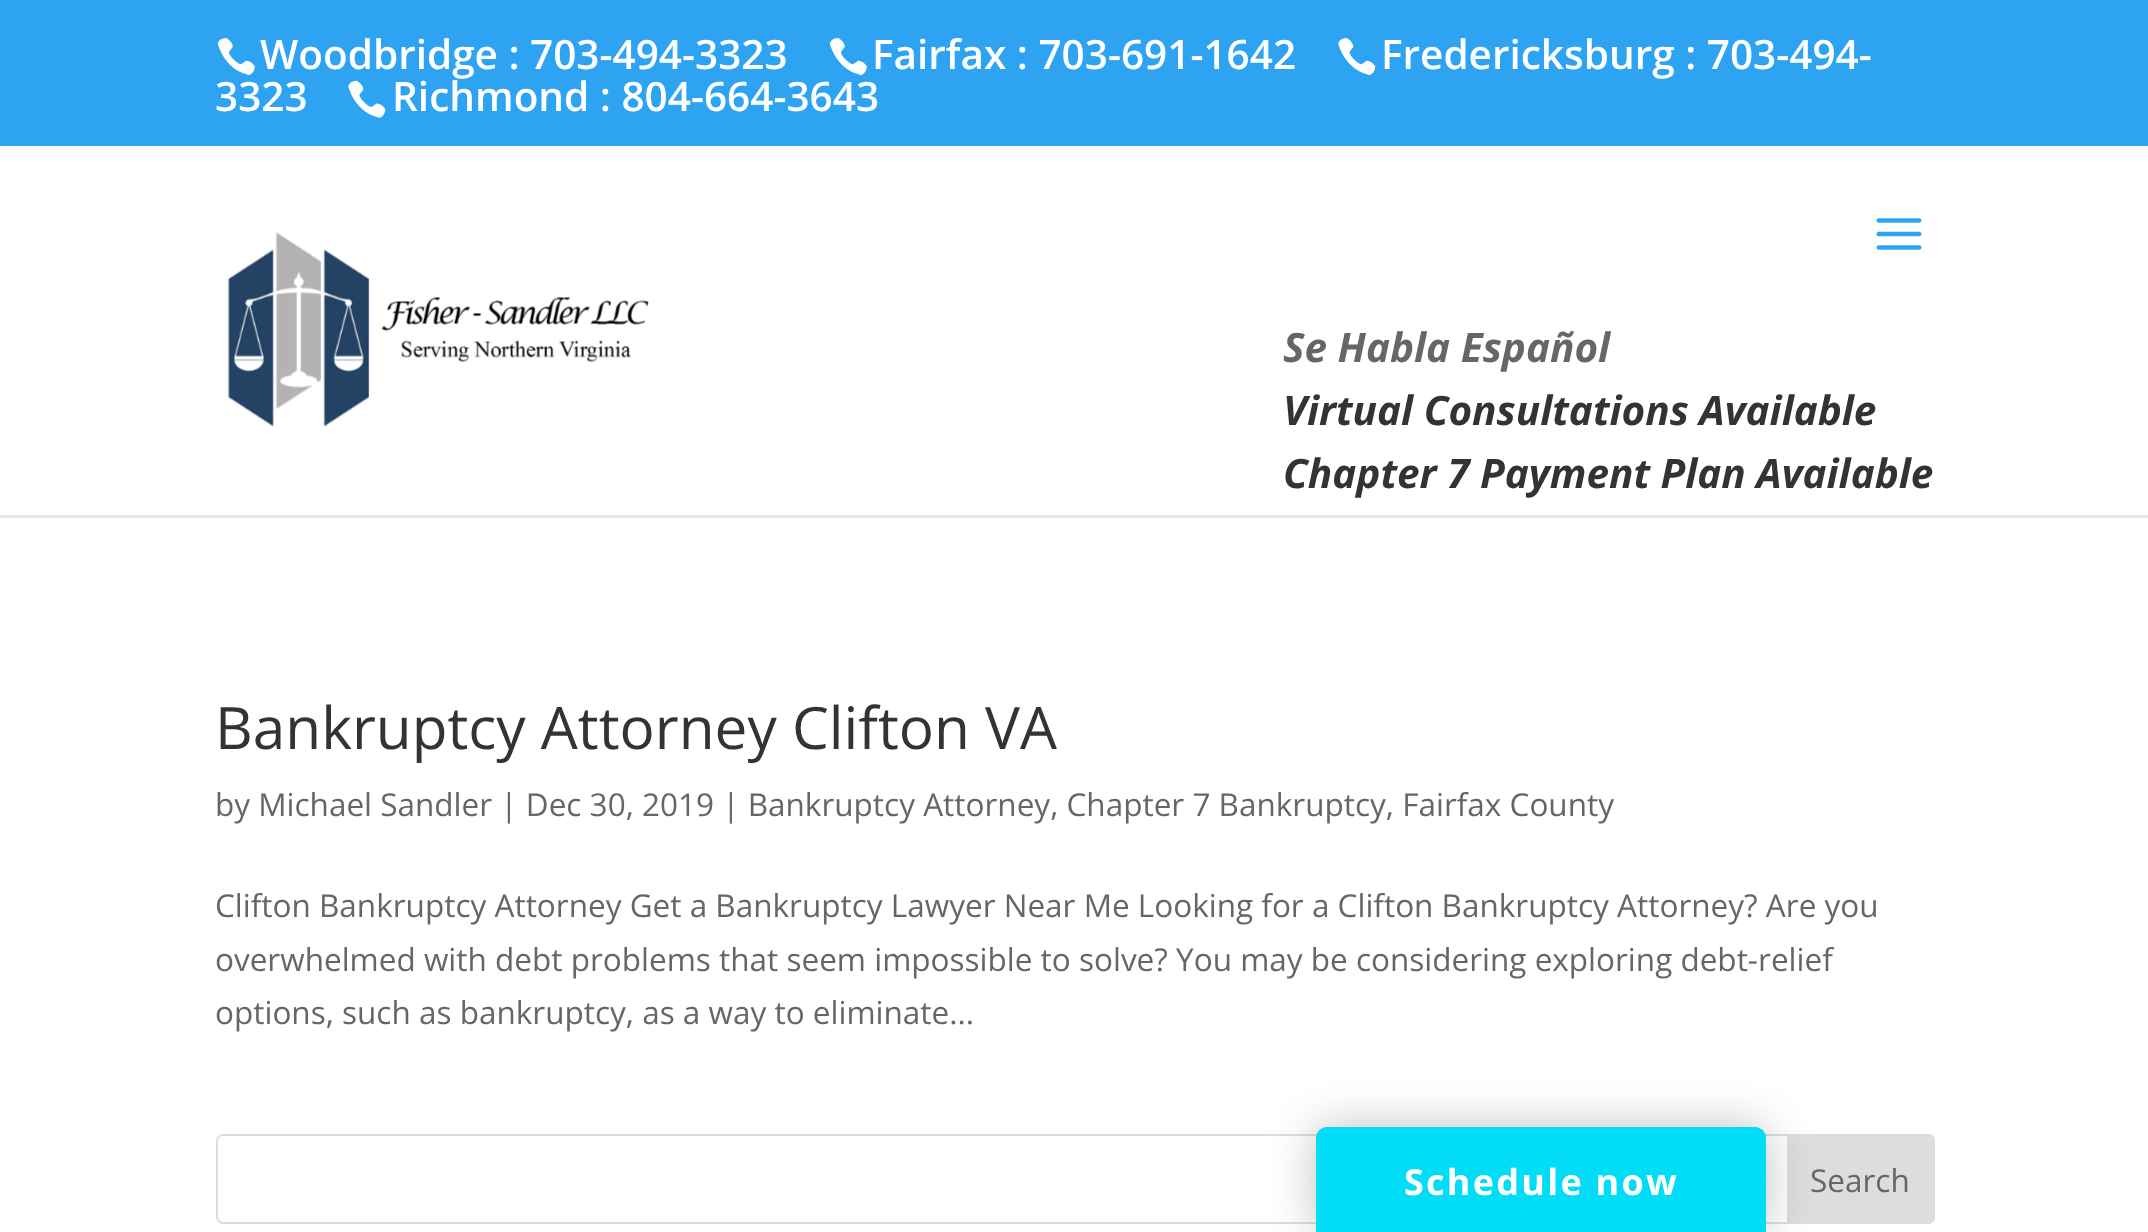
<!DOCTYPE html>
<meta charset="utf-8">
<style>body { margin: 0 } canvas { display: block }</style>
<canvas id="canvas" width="2148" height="1232"></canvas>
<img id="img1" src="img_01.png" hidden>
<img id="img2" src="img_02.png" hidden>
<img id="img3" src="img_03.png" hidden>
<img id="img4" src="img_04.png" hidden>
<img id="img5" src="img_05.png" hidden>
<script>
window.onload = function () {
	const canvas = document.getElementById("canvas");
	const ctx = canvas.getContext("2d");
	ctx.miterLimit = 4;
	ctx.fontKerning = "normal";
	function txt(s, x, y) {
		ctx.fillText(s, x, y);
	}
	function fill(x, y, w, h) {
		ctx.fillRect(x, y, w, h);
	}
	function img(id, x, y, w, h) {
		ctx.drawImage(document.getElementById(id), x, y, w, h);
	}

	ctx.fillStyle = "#FFFFFF";
	fill(0, 0, 2148, 1232);
	ctx.fillStyle = "#2EA3F2";
	fill(0, 0, 2148, 146);
	img("img1", 217, 38, 38, 38);
	img("img1", 829, 38, 38, 38);
	img("img2", 1338, 38, 38, 38);
	img("img3", 348, 80, 38, 38);
	ctx.fillStyle = "#E6E6E6";
	ctx.beginPath();
	ctx.moveTo(0, 515);
	ctx.lineTo(0, 518);
	ctx.lineTo(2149, 518);
	ctx.lineTo(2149, 149);
	ctx.lineTo(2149, 515);
	ctx.closePath();
	ctx.fill();
	img("img4", 227, 232, 422, 195);
	img("img5", 1876, 218, 46, 32);
	ctx.beginPath();
	ctx.roundRect(217, 1135, 1717, 88, 6);
	ctx.strokeStyle = "#DDDDDD";
	ctx.lineWidth = 2;
	ctx.stroke();
	ctx.fillStyle = "#DDDDDD";
	ctx.beginPath();
	ctx.roundRect(1788, 1135, 146, 88, [0, 6, 6, 0]);
	ctx.fill();
	ctx.stroke();
	ctx.fillStyle = "rgba(0, 0, 0, 0.25)";
	ctx.filter = "blur(22.5px)";
	ctx.beginPath();
	ctx.roundRect(1316, 1127, 450, 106, 11);
	ctx.fill();
	ctx.filter = "none";
	ctx.fillStyle = "#01DCF7";
	ctx.beginPath();
	ctx.moveTo(1327, 1127);
	ctx.lineTo(1755, 1127);
	ctx.bezierCurveTo(1761, 1127, 1766, 1132, 1766, 1138);
	ctx.lineTo(1766, 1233);
	ctx.lineTo(1316, 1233);
	ctx.lineTo(1316, 1138);
	ctx.bezierCurveTo(1316, 1132, 1321, 1127, 1327, 1127);
	ctx.closePath();
	ctx.fill();
	ctx.font = "600 40.5px Open Sans";
	ctx.fillStyle = "#FFFFFF";
	txt("Woodbridge : 703-494-3323", 260, 69);
	txt("Fairfax : 703-691-1642", 872, 69);
	txt("Fredericksburg : 703-494-", 1381, 69);
	txt("3323", 215, 111);
	txt("Richmond : 804-664-3643", 392, 111);
	ctx.font = "italic bold 40.5px Open Sans";
	ctx.fillStyle = "#666666";
	txt("Se Habla Español", 1283, 362);
	ctx.fillStyle = "#333333";
	txt("Virtual Consultations Available", 1283, 425);
	txt("Chapter 7 Payment Plan Available", 1283, 488);
	ctx.font = "58.5px Open Sans";
	txt("Bankruptcy Attorney Clifton VA", 215, 749);
	ctx.font = "31.5px Open Sans";
	ctx.fillStyle = "#666666";
	txt("by Michael Sandler | Dec 30, 2019 | Bankruptcy Attorney, Chapter 7 Bankruptcy, Fairfax County", 215, 816);
	txt("Clifton Bankruptcy Attorney Get a Bankruptcy Lawyer Near Me Looking for a Clifton Bankruptcy Attorney? Are you", 215, 917);
	txt("overwhelmed with debt problems that seem impossible to solve? You may be considering exploring debt-relief", 215, 971);
	txt("options, such as bankruptcy, as a way to eliminate...", 215, 1024);
	txt("Search", 1810, 1192);
	ctx.letterSpacing = "2.25px";
	ctx.font = "bold 36px Open Sans";
	ctx.fillStyle = "#FFFFFF";
	txt("Schedule now", 1404, 1195);
};
</script>
